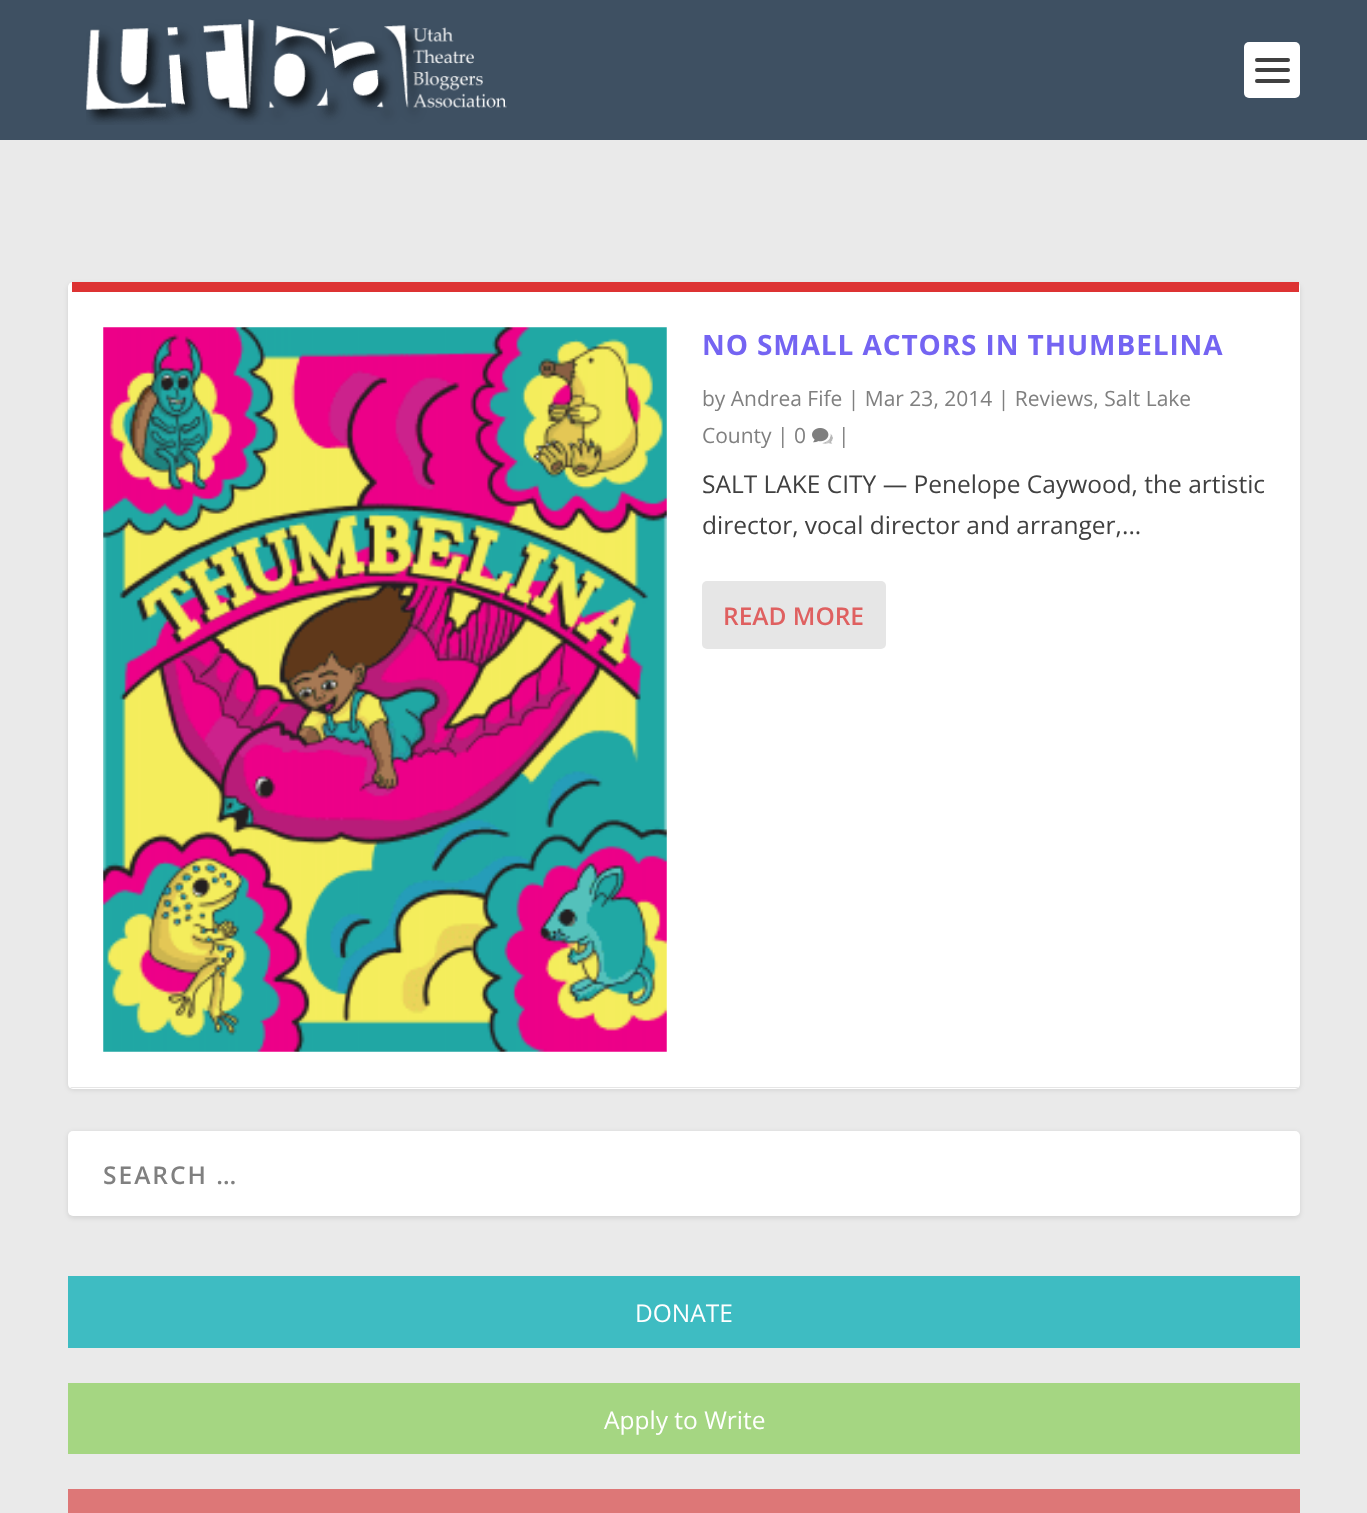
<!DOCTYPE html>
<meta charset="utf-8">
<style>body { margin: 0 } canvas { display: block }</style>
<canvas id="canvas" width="1367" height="1513"></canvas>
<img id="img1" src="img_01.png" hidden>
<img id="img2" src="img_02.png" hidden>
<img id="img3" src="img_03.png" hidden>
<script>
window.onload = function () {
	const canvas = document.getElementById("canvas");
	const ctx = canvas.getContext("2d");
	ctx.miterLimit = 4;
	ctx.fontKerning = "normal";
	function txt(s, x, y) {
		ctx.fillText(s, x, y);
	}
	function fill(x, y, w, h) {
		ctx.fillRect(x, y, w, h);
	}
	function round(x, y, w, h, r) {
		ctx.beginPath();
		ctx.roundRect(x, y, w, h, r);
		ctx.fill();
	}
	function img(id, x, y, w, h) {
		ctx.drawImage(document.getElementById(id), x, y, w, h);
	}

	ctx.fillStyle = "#EAEAEA";
	fill(0, 0, 1367, 1513);
	ctx.fillStyle = "#3E5062";
	fill(0, 0, 1367, 140);
	img("img1", 86, 19, 421, 106);
	ctx.fillStyle = "#FFFFFF";
	round(1244, 42, 56, 56, 5);
	ctx.fillStyle = "#404040";
	round(1255, 58, 35, 4, 2);
	round(1255, 68, 35, 4, 2);
	round(1255, 79, 35, 4, 2);
	ctx.fillStyle = "rgba(0, 0, 0, 0.1)";
	ctx.filter = "blur(2.5px)";
	ctx.beginPath();
	ctx.roundRect(68, 284, 1232, 806, 5);
	ctx.fill();
	ctx.filter = "none";
	ctx.fillStyle = "#FFFFFF";
	round(68, 282, 1232, 807, 5);
	ctx.fillStyle = "#DD3333";
	fill(72, 282, 1227, 10);
	ctx.fillStyle = "#E6E6E6";
	ctx.beginPath();
	ctx.moveTo(1299, 1087);
	ctx.bezierCurveTo(1298, 1088, 1296, 1088, 1295, 1088);
	ctx.lineTo(74, 1088);
	ctx.bezierCurveTo(72, 1088, 71, 1088, 70, 1087);
	ctx.closePath();
	ctx.fill();
	img("img2", 103, 327, 564, 725);
	img("img3", 812, 428, 21, 16);
	round(702, 581, 184, 68, 5);
	ctx.fillStyle = "rgba(0, 0, 0, 0.1)";
	ctx.filter = "blur(2.5px)";
	ctx.beginPath();
	ctx.roundRect(68, 1132, 1232, 86, 5);
	ctx.fill();
	ctx.filter = "none";
	ctx.fillStyle = "#FFFFFF";
	round(68, 1131, 1232, 85, 5);
	ctx.fillStyle = "#3EBCC2";
	fill(68, 1276, 1232, 72);
	ctx.fillStyle = "#A5D682";
	fill(68, 1383, 1232, 71);
	ctx.fillStyle = "#DD7777";
	fill(68, 1489, 1232, 24);
	ctx.letterSpacing = "0.9px";
	ctx.font = "bold 28px Open Sans";
	ctx.fillStyle = "#7464F2";
	txt("NO SMALL ACTORS IN THUMBELINA", 702, 355);
	ctx.letterSpacing = "0px";
	ctx.font = "21px Open Sans";
	ctx.fillStyle = "#808080";
	txt("by Andrea Fife | Mar 23, 2014 | Reviews, Salt Lake", 702, 406);
	txt("County | 0", 702, 443);
	txt("|", 838, 443);
	ctx.font = "24.5px Open Sans";
	ctx.fillStyle = "#404040";
	txt("SALT LAKE CITY — Penelope Caywood, the artistic", 702, 493);
	txt("director, vocal director and arranger,...", 702, 534);
	ctx.font = "600 24.5px Open Sans";
	ctx.fillStyle = "#DF6060";
	txt("READ MORE", 723, 625);
	ctx.letterSpacing = "2px";
	ctx.fillStyle = "#808080";
	txt("SEARCH …", 103, 1184);
	ctx.letterSpacing = "0px";
	ctx.font = "24.5px Open Sans";
	ctx.fillStyle = "#FFFFFF";
	txt("DONATE", 635, 1322);
	txt("Apply to Write", 604, 1429);
};
</script>
